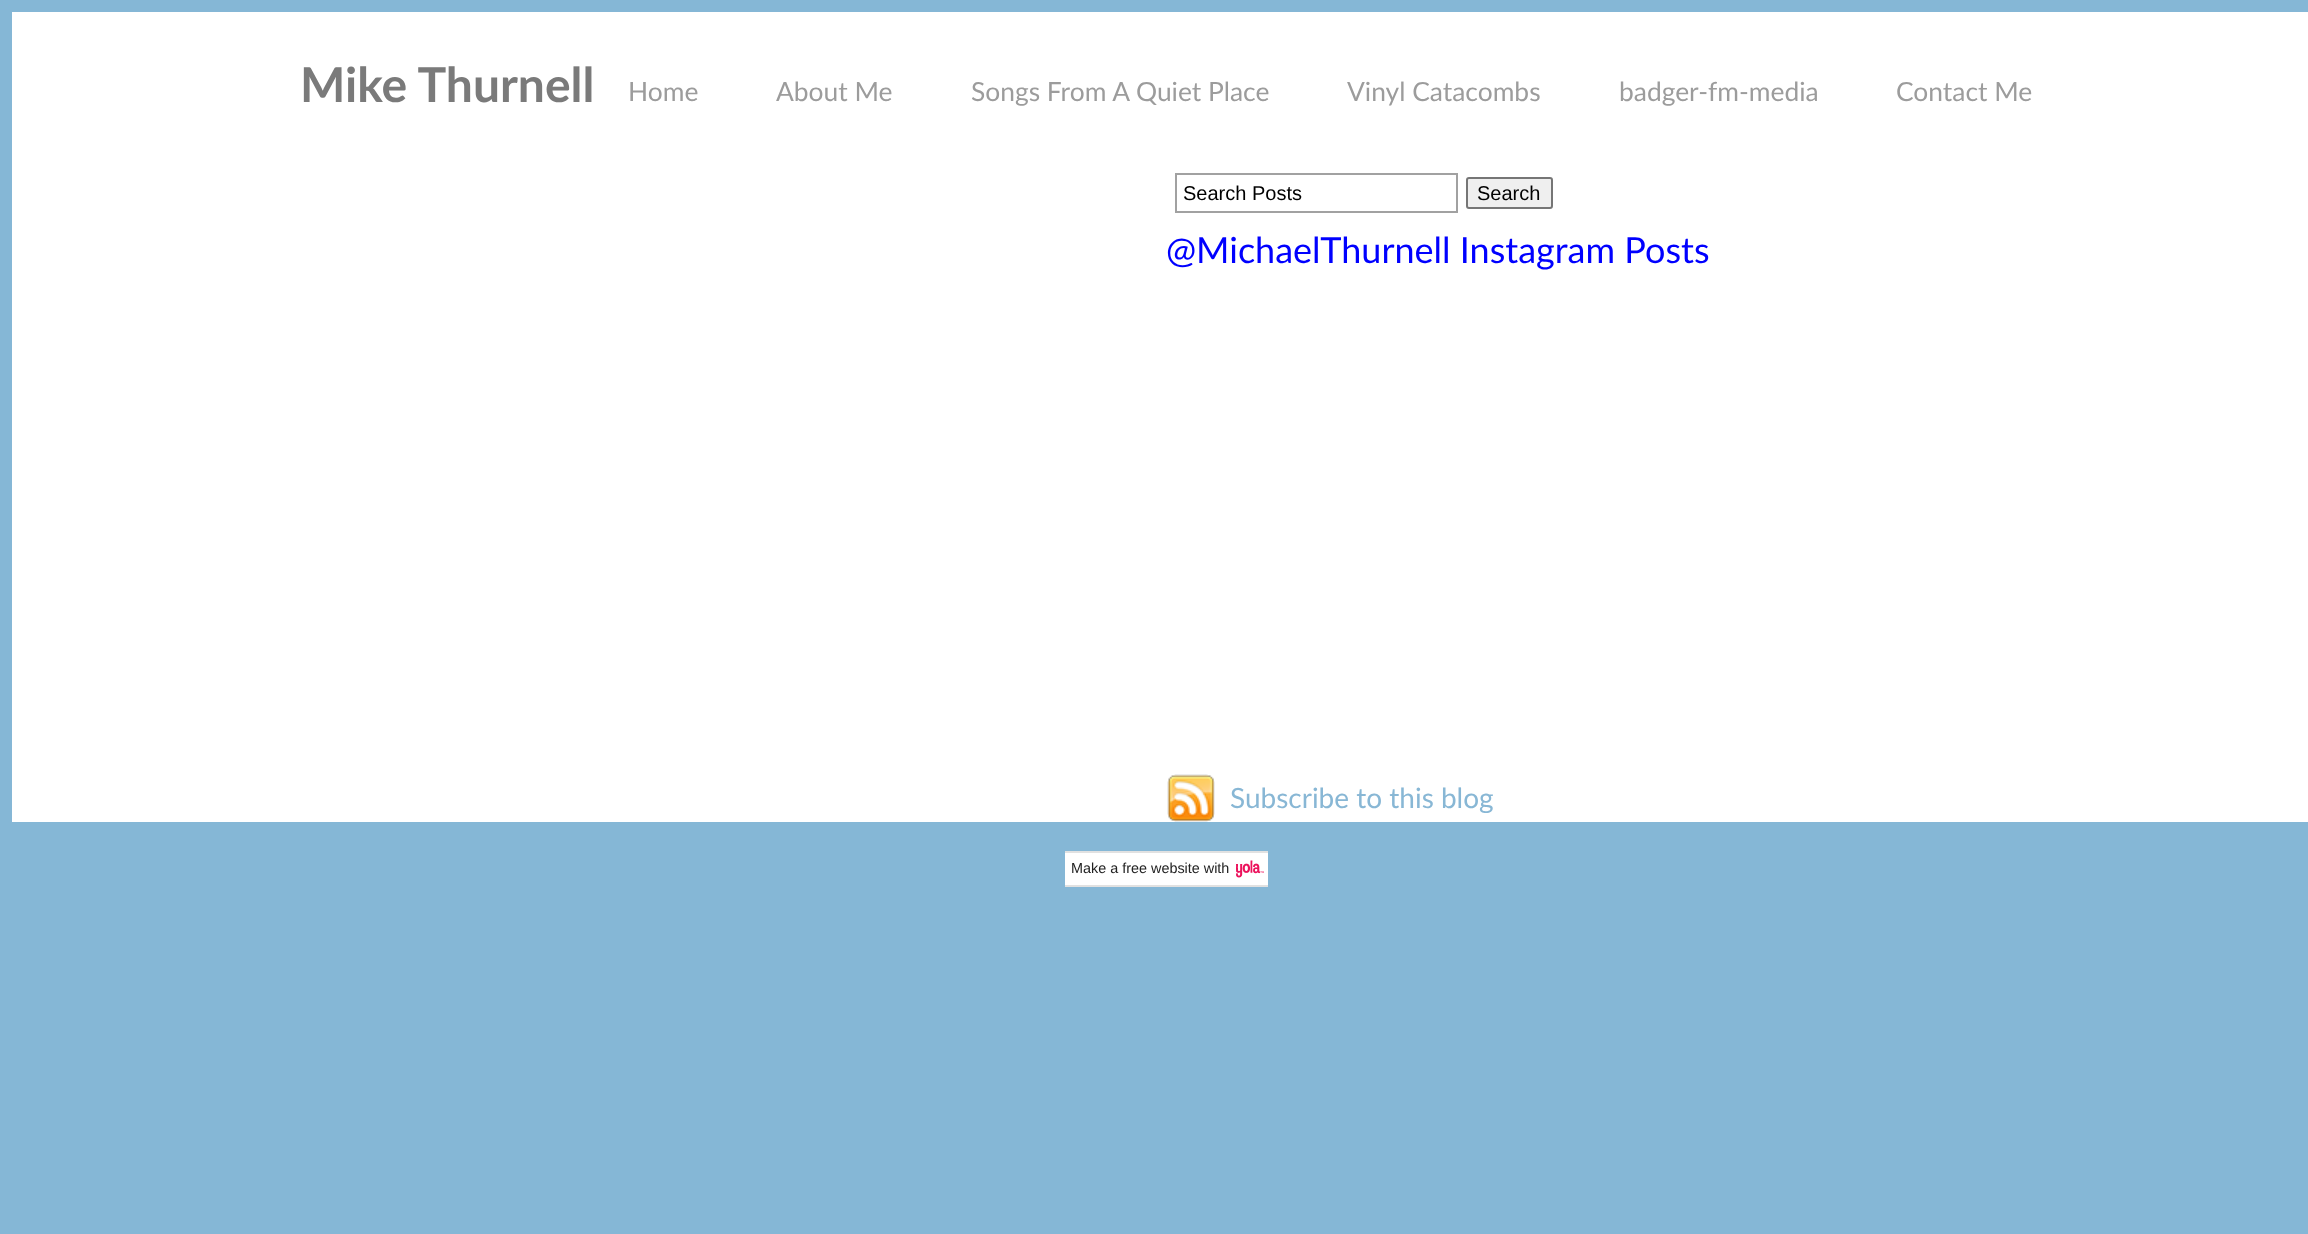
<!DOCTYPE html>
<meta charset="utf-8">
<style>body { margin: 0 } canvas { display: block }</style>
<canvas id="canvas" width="2308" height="1234"></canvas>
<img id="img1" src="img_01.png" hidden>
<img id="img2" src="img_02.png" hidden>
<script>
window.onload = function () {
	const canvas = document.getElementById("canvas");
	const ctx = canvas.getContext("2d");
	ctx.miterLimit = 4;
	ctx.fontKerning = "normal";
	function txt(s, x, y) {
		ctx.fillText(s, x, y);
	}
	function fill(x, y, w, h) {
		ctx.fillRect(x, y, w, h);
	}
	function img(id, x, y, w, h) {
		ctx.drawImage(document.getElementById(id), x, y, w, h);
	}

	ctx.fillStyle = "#85B7D6";
	fill(0, 0, 2308, 1234);
	ctx.fillStyle = "#FFFFFF";
	fill(12, 12, 2296, 810);
	ctx.strokeStyle = "#A1A1A1";
	ctx.lineWidth = 2;
	ctx.strokeRect(1176, 174, 281, 38);
	ctx.fillStyle = "#EFEFEF";
	ctx.beginPath();
	ctx.roundRect(1467, 178, 85, 30, 2);
	ctx.fill();
	ctx.strokeStyle = "#767676";
	ctx.stroke();
	img("img1", 1167, 774, 48, 48);
	ctx.fillStyle = "#FFFFFF";
	fill(1065, 853, 203, 32);
	img("img2", 1236, 860, 28, 18);
	ctx.fillStyle = "#E1E1E1";
	fill(1065, 851, 203, 2);
	fill(1065, 885, 203, 2);
	ctx.font = "bold 48px Lato";
	ctx.fillStyle = "#7A7A7A";
	txt("Mike Thurnell", 300, 102);
	ctx.font = "26.4px Lato";
	ctx.fillStyle = "#9C9C9C";
	txt("Home", 628, 101);
	txt("About Me", 776, 101);
	txt("Songs From A Quiet Place", 971, 101);
	txt("Vinyl Catacombs", 1347, 101);
	txt("badger-fm-media", 1619, 101);
	txt("Contact Me", 1896, 101);
	ctx.font = "20px Liberation Sans";
	ctx.fillStyle = "#000000";
	txt("Search Posts", 1183, 200);
	txt("Search", 1477, 200);
	ctx.font = "36px Lato";
	ctx.fillStyle = "#0000FF";
	txt("@MichaelThurnell Instagram Posts", 1166, 263);
	ctx.font = "28px Lato";
	ctx.fillStyle = "#88B7D5";
	txt("Subscribe to this blog", 1230, 808);
	ctx.font = "14.4px Liberation Sans";
	ctx.fillStyle = "#222222";
	txt("Make a free website with", 1071, 873);
};
</script>
